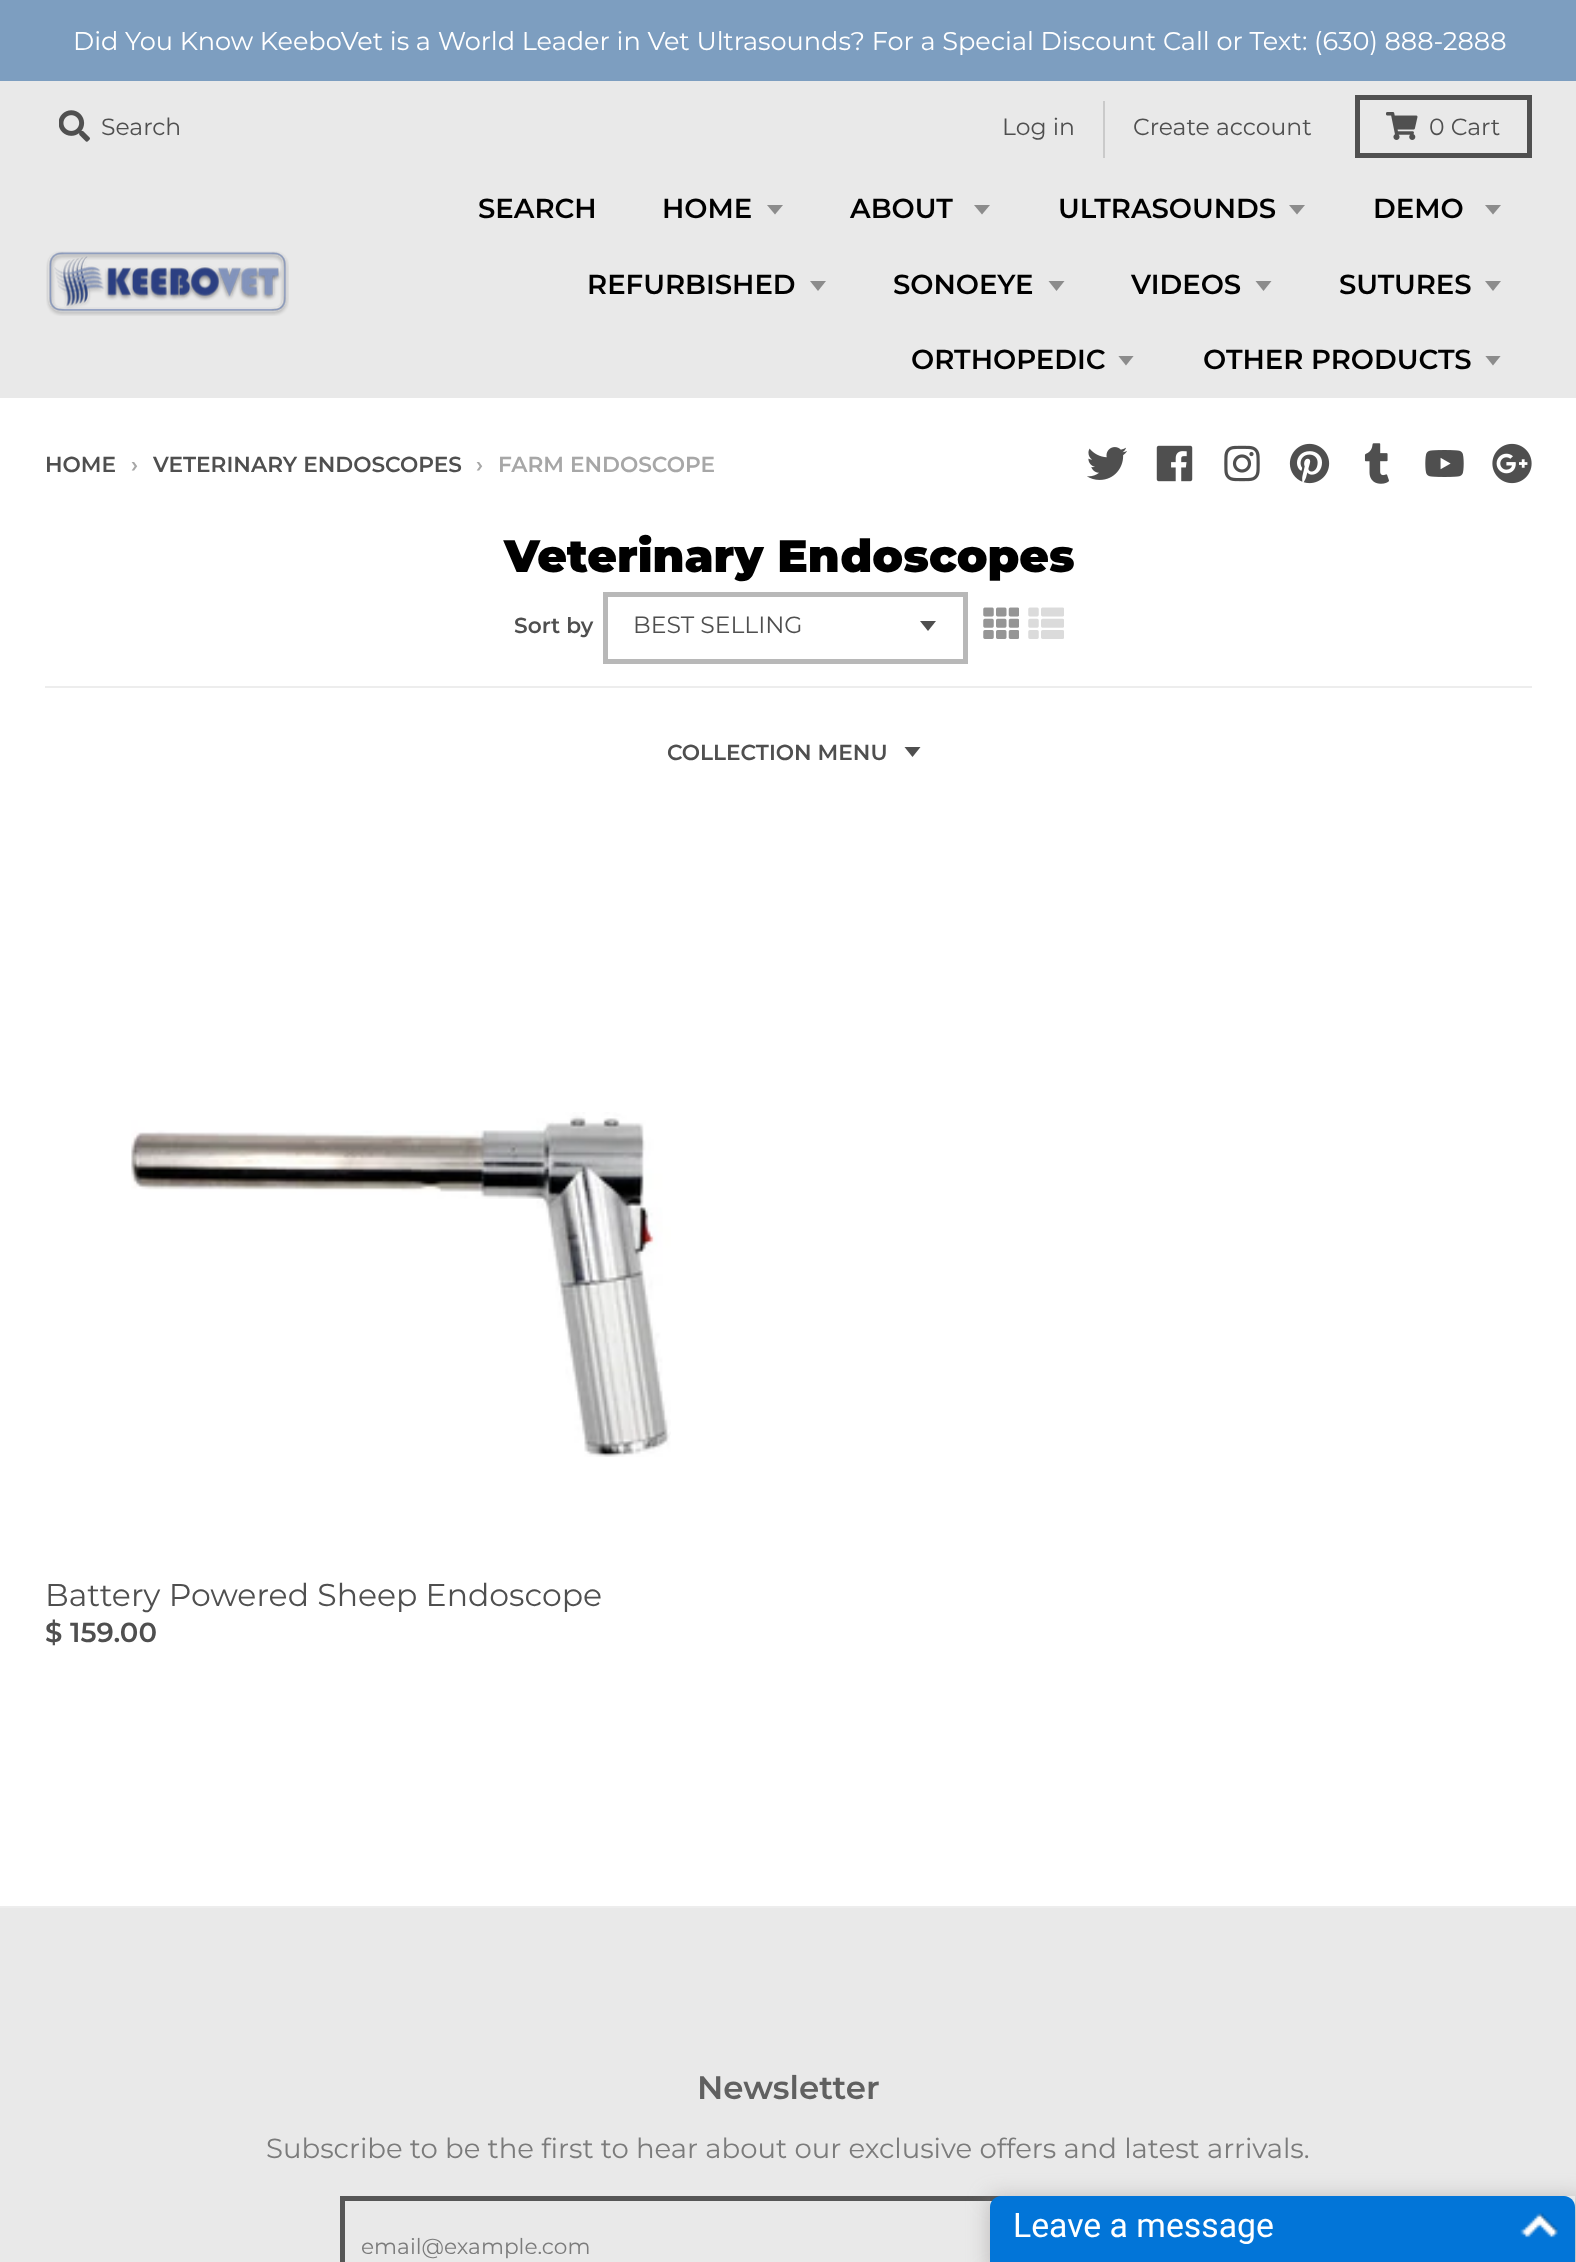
<!DOCTYPE html>
<meta charset="utf-8">
<style>body { margin: 0 } canvas { display: block }</style>
<canvas id="canvas" width="1576" height="2262"></canvas>
<img id="img1" src="img_01.png" hidden>
<img id="img2" src="img_02.png" hidden>
<img id="img3" src="img_03.png" hidden>
<img id="img4" src="img_04.png" hidden>
<img id="img5" src="img_05.png" hidden>
<img id="img6" src="img_06.png" hidden>
<img id="img7" src="img_07.png" hidden>
<img id="img8" src="img_08.png" hidden>
<img id="img9" src="img_09.png" hidden>
<img id="img10" src="img_10.png" hidden>
<img id="img11" src="img_11.png" hidden>
<img id="img12" src="img_12.png" hidden>
<img id="img13" src="img_13.png" hidden>
<img id="img14" src="img_14.png" hidden>
<script>
window.onload = function () {
	const canvas = document.getElementById("canvas");
	const ctx = canvas.getContext("2d");
	ctx.miterLimit = 4;
	ctx.fontKerning = "normal";
	function txt(s, x, y) {
		ctx.fillText(s, x, y);
	}
	function fill(x, y, w, h) {
		ctx.fillRect(x, y, w, h);
	}
	function img(id, x, y, w, h) {
		ctx.drawImage(document.getElementById(id), x, y, w, h);
	}

	ctx.fillStyle = "#FFFFFF";
	fill(0, 0, 1576, 2262);
	ctx.fillStyle = "#7D9EC0";
	fill(0, 0, 1576, 81);
	ctx.fillStyle = "#E9E9E9";
	fill(0, 81, 1576, 317);
	img("img1", 59, 110, 31, 32);
	ctx.fillStyle = "#CACACA";
	fill(1103, 101, 2, 57);
	ctx.strokeStyle = "#505050";
	ctx.lineWidth = 5;
	ctx.strokeRect(1357.5, 97.5, 172, 58);
	img("img2", 1386, 112, 32, 28);
	img("img3", 46, 251, 243, 65);
	ctx.fillStyle = "#8C8C8C";
	ctx.beginPath();
	ctx.moveTo(767, 205);
	ctx.lineTo(775, 214.5);
	ctx.lineTo(783, 205);
	ctx.closePath();
	ctx.fill();
	ctx.beginPath();
	ctx.moveTo(974, 205);
	ctx.lineTo(982, 214.5);
	ctx.lineTo(990, 205);
	ctx.closePath();
	ctx.fill();
	ctx.beginPath();
	ctx.moveTo(1289, 205);
	ctx.lineTo(1297, 214.5);
	ctx.lineTo(1305, 205);
	ctx.closePath();
	ctx.fill();
	ctx.beginPath();
	ctx.moveTo(1485, 205);
	ctx.lineTo(1493, 214.5);
	ctx.lineTo(1501, 205);
	ctx.closePath();
	ctx.fill();
	ctx.beginPath();
	ctx.moveTo(810, 281);
	ctx.lineTo(818, 291);
	ctx.lineTo(826, 281);
	ctx.closePath();
	ctx.fill();
	ctx.beginPath();
	ctx.moveTo(1048.5, 281);
	ctx.lineTo(1056.5, 291);
	ctx.lineTo(1064.5, 281);
	ctx.closePath();
	ctx.fill();
	ctx.beginPath();
	ctx.moveTo(1255.5, 281);
	ctx.lineTo(1263.5, 291);
	ctx.lineTo(1271.5, 281);
	ctx.closePath();
	ctx.fill();
	ctx.beginPath();
	ctx.moveTo(1485, 281);
	ctx.lineTo(1493, 291);
	ctx.lineTo(1501, 281);
	ctx.closePath();
	ctx.fill();
	ctx.save();
	ctx.beginPath();
	ctx.rect(1118, 356, 18, 11);
	ctx.clip();
	ctx.beginPath();
	ctx.moveTo(1118, 355.5);
	ctx.lineTo(1126, 365.5);
	ctx.lineTo(1134, 355.5);
	ctx.closePath();
	ctx.fill();
	ctx.restore();
	ctx.save();
	ctx.beginPath();
	ctx.rect(1485, 356, 18, 11);
	ctx.clip();
	ctx.beginPath();
	ctx.moveTo(1485, 355.5);
	ctx.lineTo(1493, 365.5);
	ctx.lineTo(1501, 355.5);
	ctx.closePath();
	ctx.fill();
	ctx.restore();
	ctx.fillStyle = "#EDEDED";
	fill(0, 1906, 1576, 2);
	img("img4", 1087, 447, 40, 33);
	img("img5", 1156, 445, 37, 37);
	img("img6", 1224, 445, 36, 37);
	img("img7", 1289, 443, 41, 41);
	img("img8", 1364, 443, 25, 41);
	img("img9", 1425, 450, 39, 27);
	img("img10", 1492, 443, 40, 41);
	fill(45, 686, 1487, 2);
	ctx.fillStyle = "#4F4F4F";
	ctx.beginPath();
	ctx.moveTo(920, 621);
	ctx.lineTo(928, 631);
	ctx.lineTo(936, 621);
	ctx.closePath();
	ctx.fill();
	ctx.strokeStyle = "#B8B8B8";
	ctx.strokeRect(605.5, 594.5, 360, 67);
	img("img11", 983, 607, 36, 32);
	img("img12", 1028, 607, 36, 32);
	ctx.beginPath();
	ctx.moveTo(904.5, 747);
	ctx.lineTo(912.5, 757);
	ctx.lineTo(920.5, 747);
	ctx.closePath();
	ctx.fill();
	img("img13", 131, 1112, 540, 345);
	ctx.fillStyle = "#E9E9E9";
	fill(0, 1908, 1576, 354);
	ctx.strokeStyle = "#565656";
	ctx.strokeRect(342.5, 2198.5, 800, 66);
	ctx.save();
	ctx.beginPath();
	ctx.moveTo(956, 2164);
	ctx.lineTo(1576, 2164);
	ctx.lineTo(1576, 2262);
	ctx.lineTo(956, 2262);
	ctx.closePath();
	ctx.moveTo(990, 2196);
	ctx.lineTo(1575, 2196);
	ctx.lineTo(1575, 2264);
	ctx.lineTo(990, 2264);
	ctx.closePath();
	ctx.clip("evenodd");
	ctx.fillStyle = "rgba(139, 133, 133, 0.5)";
	ctx.filter = "blur(11px)";
	ctx.beginPath();
	ctx.rect(990, 2198, 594, 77);
	ctx.fill();
	ctx.filter = "none";
	ctx.restore();
	ctx.fillStyle = "#0275D8";
	ctx.beginPath();
	ctx.moveTo(1001, 2196);
	ctx.lineTo(1564, 2196);
	ctx.bezierCurveTo(1570, 2196, 1575, 2201, 1575, 2207);
	ctx.lineTo(1575, 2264);
	ctx.lineTo(990, 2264);
	ctx.lineTo(990, 2207);
	ctx.bezierCurveTo(990, 2201, 995, 2196, 1001, 2196);
	ctx.closePath();
	ctx.fill();
	img("img14", 1520, 2212, 38, 26);
	ctx.font = "25.6px Montserrat";
	ctx.fillStyle = "#FFFFFF";
	txt("Did You Know KeeboVet is a World Leader in Vet Ultrasounds? For a Special Discount Call or Text: (630) 888-2888", 73, 50);
	ctx.font = "23.5px Montserrat";
	ctx.fillStyle = "#4F4F4F";
	txt("Search", 101, 135);
	txt("Log in", 1002, 135);
	txt("Create account", 1133, 135);
	txt("0 Cart", 1429, 135);
	ctx.font = "600 27.55px Montserrat";
	ctx.fillStyle = "#000000";
	txt("SEARCH", 478, 218);
	txt("HOME", 662, 218);
	txt("ABOUT", 850, 218);
	txt("ULTRASOUNDS", 1058, 218);
	txt("DEMO", 1373, 218);
	txt("REFURBISHED", 587, 294);
	txt("SONOEYE", 893, 294);
	txt("VIDEOS", 1131, 294);
	txt("SUTURES", 1339, 294);
	txt("ORTHOPEDIC", 911, 369);
	txt("OTHER PRODUCTS", 1203, 369);
	ctx.font = "600 21.7px Montserrat";
	ctx.fillStyle = "#4F4F4F";
	txt("HOME", 45, 472);
	ctx.fillStyle = "#A7A7A7";
	txt("›", 131, 472);
	ctx.fillStyle = "#4F4F4F";
	txt("VETERINARY ENDOSCOPES", 153, 472);
	ctx.fillStyle = "#A7A7A7";
	txt("›", 476, 472);
	txt("FARM ENDOSCOPE", 498, 472);
	ctx.font = "900 45.5px Montserrat";
	ctx.fillStyle = "#000000";
	txt("Veterinary Endoscopes", 504, 572);
	ctx.font = "600 21.7px Montserrat";
	ctx.fillStyle = "#4F4F4F";
	txt("Sort by", 514, 633);
	ctx.font = "23.5px Montserrat";
	txt("BEST SELLING", 633, 633);
	ctx.font = "600 21.7px Montserrat";
	txt("COLLECTION MENU", 667, 760);
	ctx.font = "31.5px Montserrat";
	txt("Battery Powered Sheep Endoscope", 45, 1606);
	ctx.font = "600 27.55px Montserrat";
	txt("$ 159.00", 45, 1642);
	ctx.font = "600 32.5px Montserrat";
	ctx.fillStyle = "#606060";
	txt("Newsletter", 697, 2099);
	ctx.font = "27.55px Montserrat";
	ctx.fillStyle = "#7B7B7B";
	txt("Subscribe to be the first to hear about our exclusive offers and latest arrivals.", 266, 2158);
	ctx.font = "21.7px Montserrat";
	txt("email@example.com", 361, 2254);
	ctx.font = "33.75px Roboto";
	ctx.fillStyle = "#FFFFFF";
	txt("Leave a message", 1013, 2237);
};
</script>
